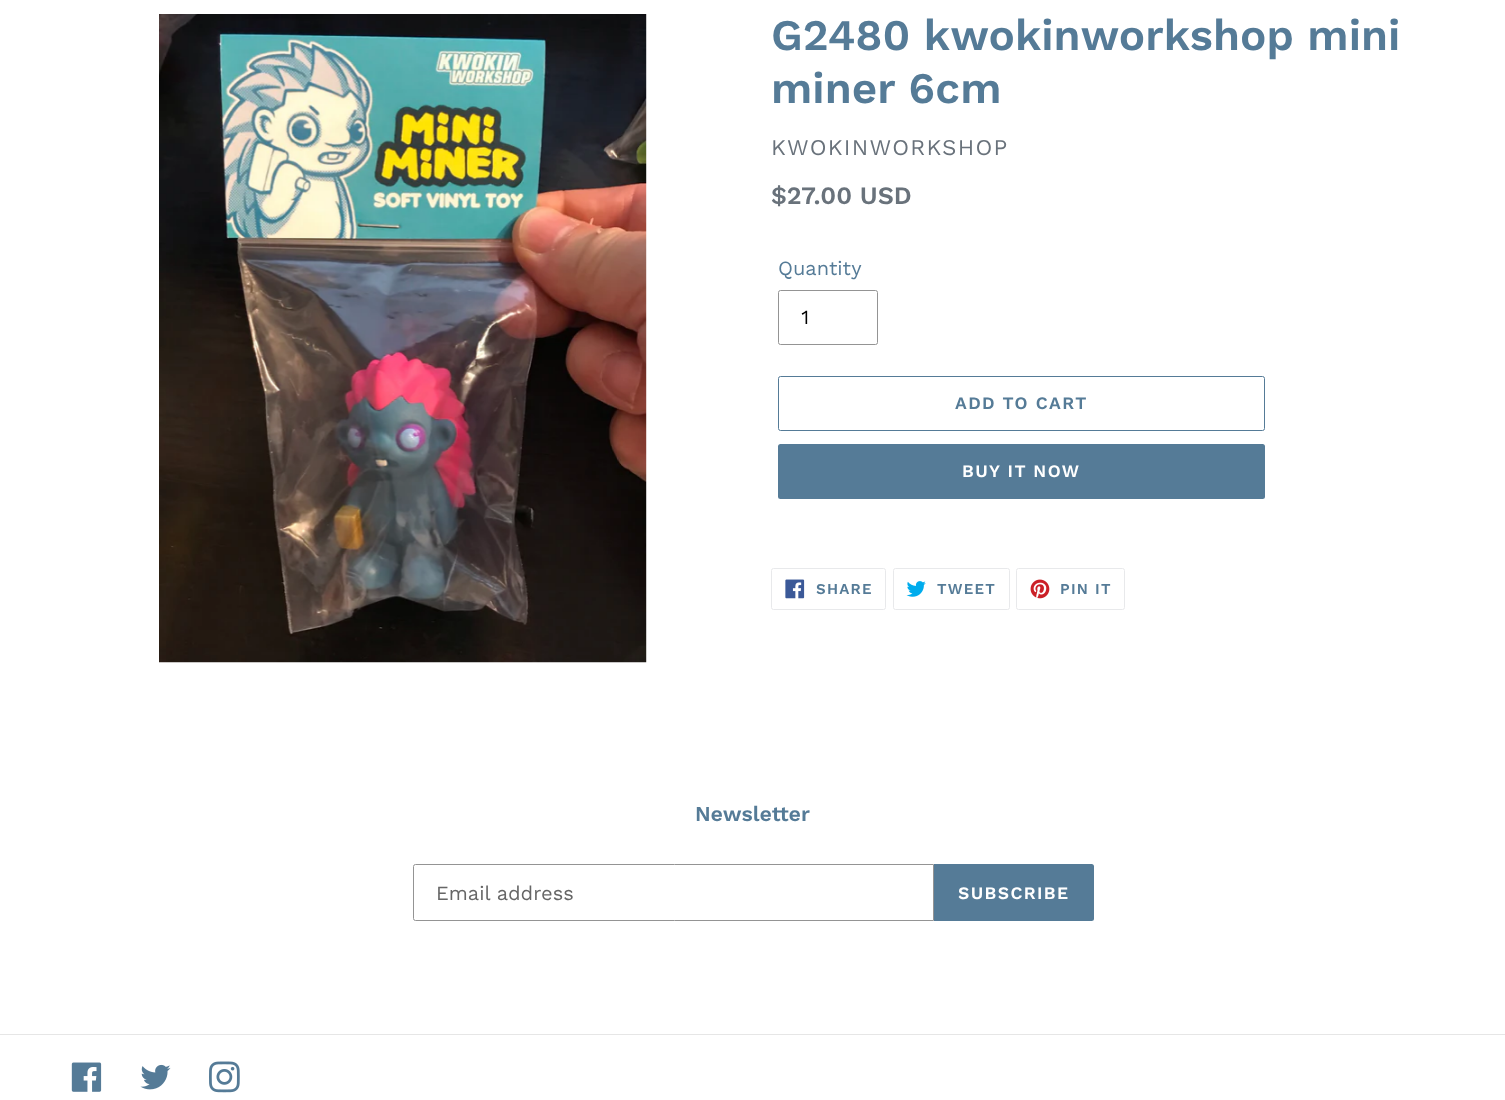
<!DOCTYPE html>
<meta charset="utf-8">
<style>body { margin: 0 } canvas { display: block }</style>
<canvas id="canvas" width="1505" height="1100"></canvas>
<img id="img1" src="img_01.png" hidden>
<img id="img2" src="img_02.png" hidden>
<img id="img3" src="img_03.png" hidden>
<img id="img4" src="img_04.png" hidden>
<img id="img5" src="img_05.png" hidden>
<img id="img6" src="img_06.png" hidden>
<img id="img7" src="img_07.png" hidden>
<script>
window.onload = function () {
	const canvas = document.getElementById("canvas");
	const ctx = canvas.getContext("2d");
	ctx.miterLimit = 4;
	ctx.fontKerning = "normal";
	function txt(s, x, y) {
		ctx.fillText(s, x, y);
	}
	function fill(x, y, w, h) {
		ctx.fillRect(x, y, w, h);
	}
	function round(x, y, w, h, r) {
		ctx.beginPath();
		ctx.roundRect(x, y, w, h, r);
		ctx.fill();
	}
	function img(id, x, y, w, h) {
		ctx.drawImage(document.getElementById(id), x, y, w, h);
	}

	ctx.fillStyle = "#FFFFFF";
	fill(0, 0, 1505, 1100);
	img("img1", 159, 14, 488, 649);
	ctx.beginPath();
	ctx.roundRect(778.5, 290.5, 99, 54, 2);
	ctx.strokeStyle = "#949494";
	ctx.stroke();
	ctx.beginPath();
	ctx.roundRect(778.5, 376.5, 486, 54, 2);
	ctx.strokeStyle = "#557B97";
	ctx.stroke();
	ctx.fillStyle = "#557B97";
	round(778, 444, 487, 55, 2.5);
	ctx.beginPath();
	ctx.roundRect(771.5, 568.5, 114, 41, 2);
	ctx.strokeStyle = "#E8E9EB";
	ctx.stroke();
	img("img2", 785, 579, 20, 20);
	ctx.beginPath();
	ctx.roundRect(893.5, 568.5, 116, 41, 2);
	ctx.stroke();
	img("img3", 906, 581, 20, 16);
	ctx.beginPath();
	ctx.roundRect(1016.5, 568.5, 108, 41, 2);
	ctx.stroke();
	img("img4", 1030, 579, 20, 20);
	ctx.beginPath();
	ctx.roundRect(413.5, 864.5, 520, 56, [2, 0, 0, 2]);
	ctx.strokeStyle = "#949494";
	ctx.stroke();
	ctx.beginPath();
	ctx.roundRect(934, 864, 160, 57, [0, 2.5, 2.5, 0]);
	ctx.fill();
	ctx.fillStyle = "#E6E6E6";
	fill(0, 1034, 1505, 1);
	img("img5", 71, 1062, 31, 30);
	img("img6", 140, 1064, 31, 26);
	img("img7", 209, 1061, 31, 32);
	ctx.font = "600 43.75px Work Sans";
	ctx.fillStyle = "#557B97";
	txt("G2480 kwokinworkshop mini", 771, 50);
	txt("miner 6cm", 771, 103);
	ctx.letterSpacing = "1.25px";
	ctx.font = "22.5px Work Sans";
	ctx.fillStyle = "#69727B";
	txt("KWOKINWORKSHOP", 771, 155);
	ctx.letterSpacing = "0px";
	ctx.font = "600 25px Work Sans";
	txt("$27.00 USD", 771, 204);
	ctx.font = "20px Work Sans";
	ctx.fillStyle = "#557B97";
	txt("Quantity", 778, 275);
	ctx.fillStyle = "#000000";
	txt("1", 801, 324);
	ctx.letterSpacing = "1.4px";
	ctx.font = "600 17.5px Work Sans";
	ctx.fillStyle = "#557B97";
	txt("ADD TO CART", 955, 409);
	ctx.fillStyle = "#FFFFFF";
	txt("BUY IT NOW", 962, 477);
	ctx.letterSpacing = "1.25px";
	ctx.font = "600 15px Work Sans";
	ctx.fillStyle = "#557B97";
	txt("SHARE", 816, 594);
	txt("TWEET", 937, 594);
	txt("PIN IT", 1060, 594);
	ctx.letterSpacing = "0px";
	ctx.font = "600 21.25px Work Sans";
	txt("Newsletter", 695, 821);
	ctx.font = "20px Work Sans";
	ctx.fillStyle = "#666666";
	txt("Email address", 436, 900);
	ctx.letterSpacing = "1.4px";
	ctx.font = "600 17.5px Work Sans";
	ctx.fillStyle = "#FFFFFF";
	txt("SUBSCRIBE", 958, 899);
};
</script>
